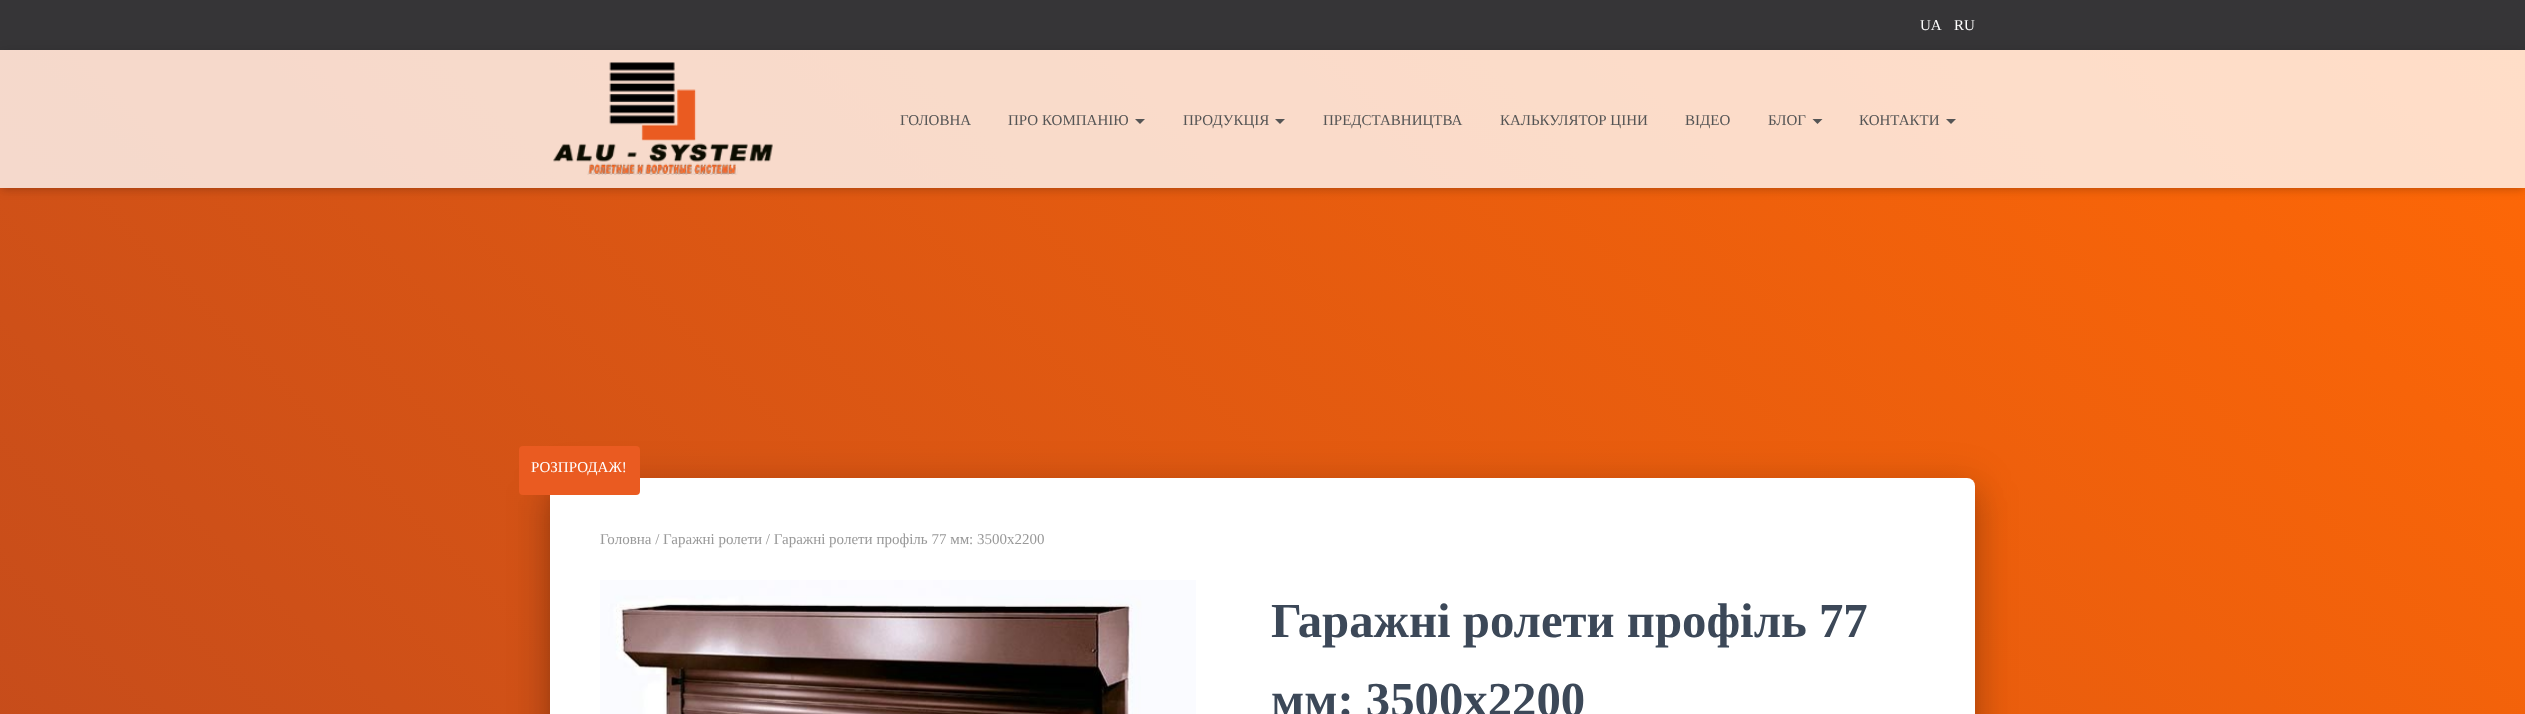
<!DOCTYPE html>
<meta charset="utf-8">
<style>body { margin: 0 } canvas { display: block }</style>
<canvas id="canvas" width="2525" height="714"></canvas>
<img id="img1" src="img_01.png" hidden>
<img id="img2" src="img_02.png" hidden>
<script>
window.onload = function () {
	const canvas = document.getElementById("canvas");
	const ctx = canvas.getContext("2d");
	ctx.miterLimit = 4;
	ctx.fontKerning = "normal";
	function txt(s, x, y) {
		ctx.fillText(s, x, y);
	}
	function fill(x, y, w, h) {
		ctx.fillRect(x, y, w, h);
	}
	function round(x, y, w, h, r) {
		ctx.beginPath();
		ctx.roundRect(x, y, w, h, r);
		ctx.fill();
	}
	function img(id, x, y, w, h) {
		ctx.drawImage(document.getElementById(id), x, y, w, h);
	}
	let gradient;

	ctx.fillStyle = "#363537";
	fill(0, 0, 2525, 714);
	gradient = ctx.createLinearGradient(452, 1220, 2073, -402);
	gradient.addColorStop(0, "#C64C1B");
	gradient.addColorStop(1, "#FF6806");
	ctx.fillStyle = gradient;
	fill(0, 50, 2525, 664);
	ctx.save();
	ctx.beginPath();
	ctx.moveTo(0, 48);
	ctx.lineTo(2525, 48);
	ctx.lineTo(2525, 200);
	ctx.lineTo(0, 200);
	ctx.closePath();
	ctx.moveTo(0, 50);
	ctx.lineTo(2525, 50);
	ctx.lineTo(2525, 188);
	ctx.lineTo(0, 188);
	ctx.closePath();
	ctx.clip("evenodd");
	ctx.fillStyle = "rgba(0, 0, 0, 0.1)";
	ctx.filter = "blur(3px)";
	ctx.beginPath();
	ctx.rect(3, 58, 2520, 132);
	ctx.fill();
	ctx.filter = "none";
	ctx.restore();
	ctx.save();
	ctx.beginPath();
	ctx.moveTo(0, 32);
	ctx.lineTo(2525, 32);
	ctx.lineTo(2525, 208);
	ctx.lineTo(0, 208);
	ctx.closePath();
	ctx.moveTo(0, 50);
	ctx.lineTo(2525, 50);
	ctx.lineTo(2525, 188);
	ctx.lineTo(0, 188);
	ctx.closePath();
	ctx.clip("evenodd");
	ctx.fillStyle = "rgba(0, 0, 0, 0.12)";
	ctx.filter = "blur(6px)";
	ctx.beginPath();
	ctx.rect(0, 51, 2525, 138);
	ctx.fill();
	ctx.filter = "none";
	ctx.restore();
	ctx.fillStyle = "rgba(255, 255, 255, 0.78)";
	fill(0, 50, 2525, 138);
	img("img1", 553, 62, 220, 113);
	ctx.fillStyle = "#555555";
	ctx.beginPath();
	ctx.moveTo(1135, 119);
	ctx.lineTo(1145, 119);
	ctx.lineTo(1140, 124);
	ctx.closePath();
	ctx.fill();
	ctx.beginPath();
	ctx.moveTo(1275, 119);
	ctx.lineTo(1285, 119);
	ctx.lineTo(1280, 124);
	ctx.closePath();
	ctx.fill();
	ctx.beginPath();
	ctx.moveTo(1812.5, 119);
	ctx.lineTo(1822.5, 119);
	ctx.lineTo(1817.5, 124);
	ctx.closePath();
	ctx.fill();
	ctx.beginPath();
	ctx.moveTo(1946, 119);
	ctx.lineTo(1956, 119);
	ctx.lineTo(1951, 124);
	ctx.closePath();
	ctx.fill();
	ctx.fillStyle = "rgba(0, 0, 0, 0.2)";
	ctx.filter = "blur(6px)";
	ctx.beginPath();
	ctx.roundRect(556, 494, 1413, 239, 1);
	ctx.fill();
	ctx.filter = "none";
	ctx.fillStyle = "rgba(0, 0, 0, 0.12)";
	ctx.filter = "blur(19px)";
	ctx.beginPath();
	ctx.roundRect(544, 479, 1437, 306, 14);
	ctx.fill();
	ctx.filter = "none";
	ctx.fillStyle = "rgba(0, 0, 0, 0.14)";
	ctx.filter = "blur(15px)";
	ctx.beginPath();
	ctx.roundRect(548, 495, 1430, 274, 10);
	ctx.fill();
	ctx.filter = "none";
	ctx.fillStyle = "#FFFFFF";
	round(550, 478, 1425, 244, 8);
	ctx.fillStyle = "#EA5B21";
	round(519, 446, 121, 49, 4);
	img("img2", 600, 580, 596, 134);
	ctx.font = "15px Liberation Serif";
	ctx.fillStyle = "#FFFFFF";
	txt("UA", 1920, 30);
	txt("RU", 1954, 30);
	ctx.fillStyle = "#555555";
	txt("ГОЛОВНА", 900, 125);
	txt("ПРО КОМПАНІЮ", 1008, 125);
	txt("ПРОДУКЦІЯ", 1183, 125);
	txt("ПРЕДСТАВНИЦТВА", 1323, 125);
	txt("КАЛЬКУЛЯТОР ЦІНИ", 1500, 125);
	txt("ВІДЕО", 1685, 125);
	txt("БЛОГ", 1768, 125);
	txt("КОНТАКТИ", 1859, 125);
	ctx.fillStyle = "#FFFFFF";
	txt("РОЗПРОДАЖ!", 531, 472);
	ctx.fillStyle = "#999999";
	txt("Головна / Гаражні ролети / Гаражні ролети профіль 77 мм: 3500х2200", 600, 544);
	ctx.font = "bold 48.75px Liberation Serif";
	ctx.fillStyle = "#3C4858";
	txt("Гаражні ролети профіль 77", 1271, 637);
	txt("мм: 3500х2200", 1271, 716);
};
</script>
